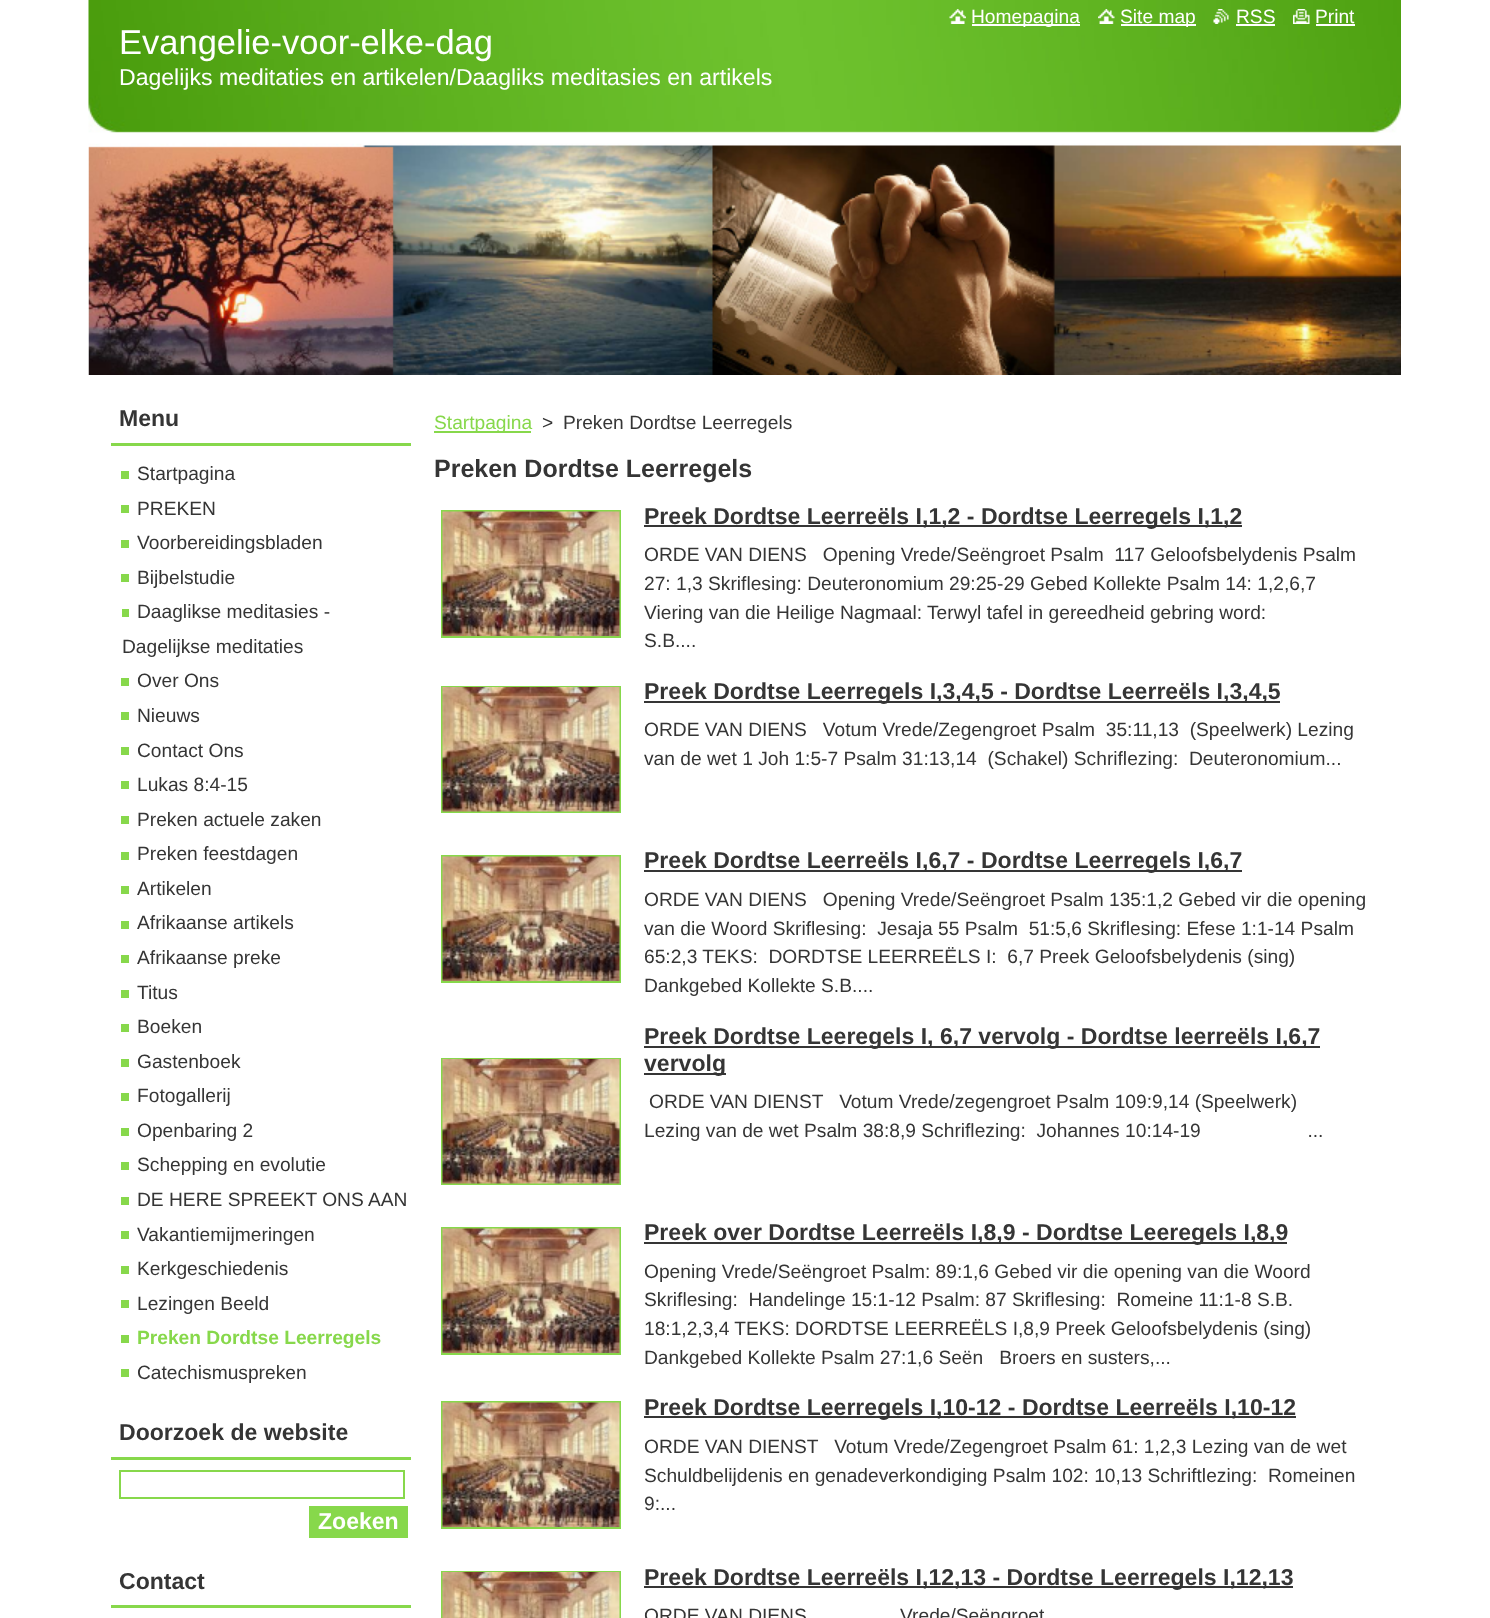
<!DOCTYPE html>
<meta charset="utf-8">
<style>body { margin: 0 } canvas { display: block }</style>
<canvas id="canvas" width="1490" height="1618"></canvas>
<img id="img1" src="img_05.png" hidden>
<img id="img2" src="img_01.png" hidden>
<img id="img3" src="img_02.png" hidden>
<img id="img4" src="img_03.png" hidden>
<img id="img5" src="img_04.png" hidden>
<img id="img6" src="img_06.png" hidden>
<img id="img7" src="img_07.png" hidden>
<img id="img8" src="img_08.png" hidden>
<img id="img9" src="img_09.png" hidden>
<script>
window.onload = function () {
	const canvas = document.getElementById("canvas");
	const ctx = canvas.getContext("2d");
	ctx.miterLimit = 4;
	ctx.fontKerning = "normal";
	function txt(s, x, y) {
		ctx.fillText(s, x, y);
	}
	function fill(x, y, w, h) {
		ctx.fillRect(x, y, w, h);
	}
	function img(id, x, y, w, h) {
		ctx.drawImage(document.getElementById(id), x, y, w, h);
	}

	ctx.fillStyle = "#FFFFFF";
	fill(0, 0, 1490, 1618);
	img("img1", 88, 0, 1313, 146);
	img("img2", 949, 9, 17, 15);
	fill(972, 24, 108, 2);
	img("img3", 1098, 9, 17, 15);
	fill(1121, 24, 75, 2);
	img("img4", 1213, 9, 16, 15);
	fill(1236, 24, 39, 2);
	img("img5", 1293, 9, 17, 15);
	fill(1316, 24, 39, 2);
	img("img6", 88, 145, 1313, 230);
	ctx.fillStyle = "#87D84B";
	fill(111, 443, 300, 3);
	fill(121, 471, 8, 8);
	fill(121, 505, 8, 8);
	fill(121, 540, 8, 8);
	fill(121, 574, 8, 8);
	fill(122, 609, 7, 8);
	fill(121, 678, 8, 8);
	fill(121, 712, 8, 8);
	fill(121, 747, 8, 8);
	fill(121, 781, 8, 8);
	fill(121, 816, 8, 8);
	fill(121, 852, 8, 8);
	fill(121, 886, 8, 8);
	fill(121, 921, 8, 8);
	fill(121, 955, 8, 8);
	fill(121, 990, 8, 8);
	fill(121, 1024, 8, 8);
	fill(121, 1059, 8, 8);
	fill(121, 1093, 8, 8);
	fill(121, 1128, 8, 8);
	fill(121, 1162, 8, 8);
	fill(121, 1197, 8, 8);
	fill(121, 1231, 8, 8);
	fill(121, 1266, 8, 8);
	fill(121, 1300, 8, 8);
	fill(121, 1335, 8, 8);
	fill(121, 1369, 8, 8);
	fill(111, 1457, 300, 3);
	ctx.strokeStyle = "#87D84B";
	ctx.lineWidth = 2;
	ctx.strokeRect(120, 1471, 284, 27);
	fill(309, 1506, 99, 32);
	fill(111, 1605, 300, 3);
	fill(434, 431, 97, 2);
	ctx.strokeRect(442, 511, 178, 126);
	img("img7", 442, 511, 178, 125);
	ctx.fillStyle = "#353535";
	fill(644, 525, 598, 2);
	ctx.strokeRect(442, 687, 178, 125);
	img("img8", 442, 687, 178, 125);
	fill(644, 701, 636, 2);
	ctx.strokeRect(442, 856, 178, 126);
	img("img7", 442, 856, 178, 125);
	fill(644, 870, 598, 2);
	fill(644, 1046, 676, 2);
	fill(644, 1073, 82, 2);
	ctx.strokeRect(442, 1059, 178, 125);
	img("img8", 442, 1059, 178, 125);
	ctx.strokeRect(442, 1228, 178, 126);
	img("img7", 442, 1228, 178, 125);
	fill(644, 1242, 643, 2);
	ctx.strokeRect(442, 1402, 178, 126);
	img("img7", 442, 1402, 178, 125);
	fill(644, 1416, 652, 2);
	ctx.strokeRect(442, 1572, 178, 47);
	img("img9", 442, 1572, 178, 46);
	fill(644, 1586, 649, 2);
	ctx.font = "19.2px Liberation Sans";
	ctx.fillStyle = "#FFFFFF";
	txt("Homepagina", 971, 23);
	txt("Site map", 1120, 23);
	txt("RSS", 1236, 23);
	txt("Print", 1315, 23);
	ctx.font = "34.5px Liberation Sans";
	txt("Evangelie-voor-elke-dag", 119, 54);
	ctx.font = "23.05px Liberation Sans";
	txt("Dagelijks meditaties en artikelen/Daagliks meditasies en artikels", 119, 85);
	ctx.font = "bold 23.05px Liberation Sans";
	ctx.fillStyle = "#353535";
	txt("Menu", 119, 426);
	ctx.font = "19.2px Liberation Sans";
	txt("Startpagina", 137, 480);
	txt("PREKEN", 137, 515);
	txt("Voorbereidingsbladen", 137, 549);
	txt("Bijbelstudie", 137, 584);
	txt("Daaglikse meditasies -", 137, 618);
	txt("Dagelijkse meditaties", 122, 653);
	txt("Over Ons", 137, 687);
	txt("Nieuws", 137, 722);
	txt("Contact Ons", 137, 757);
	txt("Lukas 8:4-15", 137, 791);
	txt("Preken actuele zaken", 137, 826);
	txt("Preken feestdagen", 137, 860);
	txt("Artikelen", 137, 895);
	txt("Afrikaanse artikels", 137, 929);
	txt("Afrikaanse preke", 137, 964);
	txt("Titus", 137, 999);
	txt("Boeken", 137, 1033);
	txt("Gastenboek", 137, 1068);
	txt("Fotogallerij", 137, 1102);
	txt("Openbaring 2", 137, 1137);
	txt("Schepping en evolutie", 137, 1171);
	txt("DE HERE SPREEKT ONS AAN", 137, 1206);
	txt("Vakantiemijmeringen", 137, 1241);
	txt("Kerkgeschiedenis", 137, 1275);
	txt("Lezingen Beeld", 137, 1310);
	ctx.font = "bold 19.2px Liberation Sans";
	ctx.fillStyle = "#87D84B";
	txt("Preken Dordtse Leerregels", 137, 1344);
	ctx.font = "19.2px Liberation Sans";
	ctx.fillStyle = "#353535";
	txt("Catechismuspreken", 137, 1379);
	ctx.font = "bold 23.05px Liberation Sans";
	txt("Doorzoek de website", 119, 1440);
	ctx.fillStyle = "#FFFFFF";
	txt("Zoeken", 318, 1529);
	ctx.fillStyle = "#353535";
	txt("Contact", 119, 1589);
	ctx.font = "19.2px Liberation Sans";
	ctx.fillStyle = "#87D84B";
	txt("Startpagina", 434, 429);
	ctx.fillStyle = "#353535";
	txt(">", 542, 429);
	txt("Preken Dordtse Leerregels", 563, 429);
	ctx.font = "bold 25px Liberation Sans";
	txt("Preken Dordtse Leerregels", 434, 477);
	ctx.font = "bold 23.05px Liberation Sans";
	txt("Preek Dordtse Leerreëls I,1,2 - Dordtse Leerregels I,1,2", 644, 524);
	ctx.font = "19.2px Liberation Sans";
	txt("ORDE VAN DIENS   Opening Vrede/Seëngroet Psalm  117 Geloofsbelydenis Psalm", 644, 561);
	txt("27: 1,3 Skriflesing: Deuteronomium 29:25-29 Gebed Kollekte Psalm 14: 1,2,6,7", 644, 590);
	txt("Viering van die Heilige Nagmaal: Terwyl tafel in gereedheid gebring word:", 644, 619);
	txt("S.B....", 644, 647);
	ctx.font = "bold 23.05px Liberation Sans";
	txt("Preek Dordtse Leerregels I,3,4,5 - Dordtse Leerreëls I,3,4,5", 644, 699);
	ctx.font = "19.2px Liberation Sans";
	txt("ORDE VAN DIENS   Votum Vrede/Zegengroet Psalm  35:11,13  (Speelwerk) Lezing", 644, 736);
	txt("van de wet 1 Joh 1:5-7 Psalm 31:13,14  (Schakel) Schriflezing:  Deuteronomium...", 644, 765);
	ctx.font = "bold 23.05px Liberation Sans";
	txt("Preek Dordtse Leerreëls I,6,7 - Dordtse Leerregels I,6,7", 644, 868);
	ctx.font = "19.2px Liberation Sans";
	txt("ORDE VAN DIENS   Opening Vrede/Seëngroet Psalm 135:1,2 Gebed vir die opening", 644, 906);
	txt("van die Woord Skriflesing:  Jesaja 55 Psalm  51:5,6 Skriflesing: Efese 1:1-14 Psalm", 644, 935);
	txt("65:2,3 TEKS:  DORDTSE LEERREËLS I:  6,7 Preek Geloofsbelydenis (sing)", 644, 963);
	txt("Dankgebed Kollekte S.B....", 644, 992);
	ctx.font = "bold 23.05px Liberation Sans";
	txt("Preek Dordtse Leeregels I, 6,7 vervolg - Dordtse leerreëls I,6,7", 644, 1044);
	txt("vervolg", 644, 1071);
	ctx.font = "19.2px Liberation Sans";
	txt("ORDE VAN DIENST   Votum Vrede/zegengroet Psalm 109:9,14 (Speelwerk)", 649, 1108);
	txt("Lezing van de wet Psalm 38:8,9 Schriflezing:  Johannes 10:14-19                    ...", 644, 1137);
	ctx.font = "bold 23.05px Liberation Sans";
	txt("Preek over Dordtse Leerreëls I,8,9 - Dordtse Leeregels I,8,9", 644, 1240);
	ctx.font = "19.2px Liberation Sans";
	txt("Opening Vrede/Seëngroet Psalm: 89:1,6 Gebed vir die opening van die Woord", 644, 1278);
	txt("Skriflesing:  Handelinge 15:1-12 Psalm: 87 Skriflesing:  Romeine 11:1-8 S.B.", 644, 1306);
	txt("18:1,2,3,4 TEKS: DORDTSE LEERREËLS I,8,9 Preek Geloofsbelydenis (sing)", 644, 1335);
	txt("Dankgebed Kollekte Psalm 27:1,6 Seën   Broers en susters,...", 644, 1364);
	ctx.font = "bold 23.05px Liberation Sans";
	txt("Preek Dordtse Leerregels I,10-12 - Dordtse Leerreëls I,10-12", 644, 1415);
	ctx.font = "19.2px Liberation Sans";
	txt("ORDE VAN DIENST   Votum Vrede/Zegengroet Psalm 61: 1,2,3 Lezing van de wet", 644, 1453);
	txt("Schuldbelijdenis en genadeverkondiging Psalm 102: 10,13 Schriftlezing:  Romeinen", 644, 1482);
	txt("9:...", 644, 1510);
	ctx.font = "bold 23.05px Liberation Sans";
	txt("Preek Dordtse Leerreëls I,12,13 - Dordtse Leerregels I,12,13", 644, 1585);
	ctx.font = "19.2px Liberation Sans";
	txt("ORDE VAN DIENS", 644, 1622);
	txt("Vrede/Seëngroet", 900, 1622);
};
</script>
